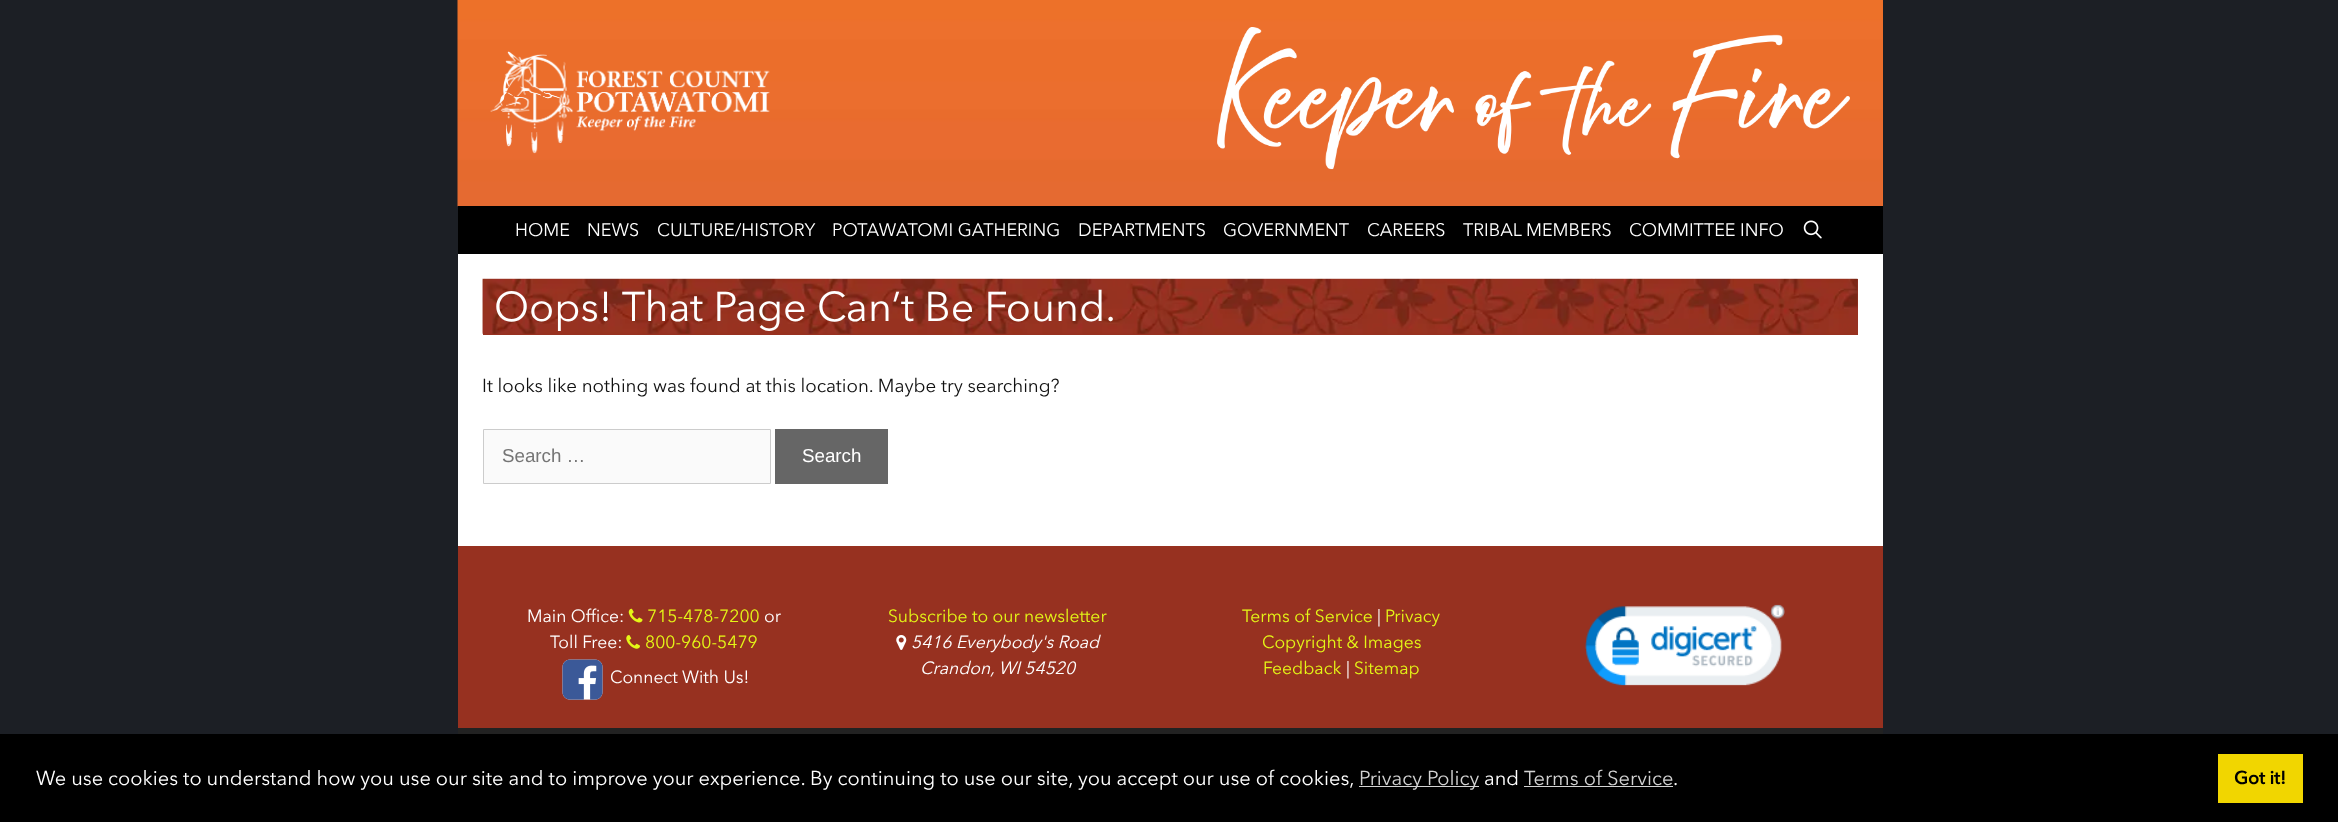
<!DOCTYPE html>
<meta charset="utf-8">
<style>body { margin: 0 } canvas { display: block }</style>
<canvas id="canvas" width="2338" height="822"></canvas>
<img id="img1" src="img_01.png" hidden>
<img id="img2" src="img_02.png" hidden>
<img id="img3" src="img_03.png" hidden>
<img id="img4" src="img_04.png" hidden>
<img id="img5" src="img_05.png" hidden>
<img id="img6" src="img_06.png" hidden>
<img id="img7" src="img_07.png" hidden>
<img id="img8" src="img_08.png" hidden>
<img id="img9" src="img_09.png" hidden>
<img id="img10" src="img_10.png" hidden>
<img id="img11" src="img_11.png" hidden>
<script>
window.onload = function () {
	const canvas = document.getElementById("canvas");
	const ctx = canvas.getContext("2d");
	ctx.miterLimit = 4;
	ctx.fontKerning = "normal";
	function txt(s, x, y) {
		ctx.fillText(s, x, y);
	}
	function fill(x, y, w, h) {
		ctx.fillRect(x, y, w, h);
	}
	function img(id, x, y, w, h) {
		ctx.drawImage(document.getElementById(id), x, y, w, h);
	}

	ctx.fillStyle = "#1C1F25";
	fill(0, 0, 2338, 822);
	ctx.fillStyle = "#EC6E2B";
	fill(1882, 0, 1, 206);
	img("img1", 457, 0, 1426, 207);
	img("img2", 490, 51, 280, 103);
	img("img3", 1217, 27, 633, 143);
	ctx.fillStyle = "#000000";
	fill(458, 206, 1425, 48);
	img("img4", 1803, 220, 19, 19);
	ctx.fillStyle = "#FFFFFF";
	fill(458, 254, 1425, 292);
	ctx.fillStyle = "#973120";
	fill(483, 279, 1375, 56);
	img("img5", 482, 278, 1376, 56);
	ctx.fillStyle = "#FAFAFA";
	ctx.beginPath();
	ctx.rect(483.5, 429.5, 287, 54);
	ctx.fill();
	ctx.strokeStyle = "#CCCCCC";
	ctx.stroke();
	ctx.fillStyle = "#666666";
	fill(775, 429, 113, 55);
	ctx.fillStyle = "#973120";
	fill(458, 546, 1425, 182);
	img("img6", 628, 608, 15, 15);
	img("img7", 626, 635, 14, 14);
	img("img8", 562, 659, 41, 41);
	img("img9", 562, 659, 41, 41);
	img("img10", 896, 635, 11, 15);
	img("img11", 1585, 604, 200, 82);
	ctx.fillStyle = "#222222";
	fill(458, 728, 1425, 6);
	ctx.fillStyle = "#000000";
	fill(0, 734, 2338, 88);
	ctx.fillStyle = "#D3D3D3";
	fill(1359, 786, 120, 1);
	fill(1524, 786, 149, 1);
	ctx.fillStyle = "#F1D600";
	fill(2218, 754, 85, 49);
	ctx.font = "18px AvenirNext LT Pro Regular";
	ctx.fillStyle = "#FFFFFF";
	txt("HOME", 515, 236);
	txt("NEWS", 587, 236);
	txt("CULTURE/HISTORY", 657, 236);
	txt("POTAWATOMI GATHERING", 832, 236);
	txt("DEPARTMENTS", 1078, 236);
	txt("GOVERNMENT", 1223, 236);
	txt("CAREERS", 1367, 236);
	txt("TRIBAL MEMBERS", 1463, 236);
	txt("COMMITTEE INFO", 1629, 236);
	ctx.font = "41.25px AvenirNext LT Pro Regular";
	txt("Oops! That Page Can’t Be Found.", 494, 321);
	ctx.font = "18.75px AvenirNext LT Pro Regular";
	ctx.fillStyle = "#111111";
	txt("It looks like nothing was found at this location. Maybe try searching?", 482, 392);
	ctx.font = "18.75px Liberation Sans";
	ctx.fillStyle = "#757575";
	txt("Search …", 502, 462);
	ctx.fillStyle = "#FFFFFF";
	txt("Search", 802, 462);
	ctx.font = "17.5px AvenirNext LT Pro Regular";
	txt("Main Office:", 527, 622);
	ctx.fillStyle = "#E4F617";
	txt("715-478-7200", 647, 622);
	ctx.fillStyle = "#FFFFFF";
	txt("or", 764, 622);
	txt("Toll Free:", 550, 648);
	ctx.fillStyle = "#E4F617";
	txt("800-960-5479", 645, 648);
	ctx.fillStyle = "#FFFFFF";
	txt("Connect With Us!", 610, 683);
	ctx.fillStyle = "#E4F617";
	txt("Subscribe to our newsletter", 888, 622);
	ctx.font = "italic 17.5px AvenirNext LT Pro Regular";
	ctx.fillStyle = "#FFFFFF";
	txt("5416 Everybody's Road", 911, 648);
	txt("Crandon, WI 54520", 920, 674);
	ctx.font = "17.5px AvenirNext LT Pro Regular";
	ctx.fillStyle = "#E4F617";
	txt("Terms of Service", 1242, 622);
	ctx.fillStyle = "#FFFFFF";
	txt("|", 1377, 622);
	ctx.fillStyle = "#E4F617";
	txt("Privacy", 1385, 622);
	txt("Copyright & Images", 1262, 648);
	txt("Feedback", 1263, 674);
	ctx.fillStyle = "#FFFFFF";
	txt("|", 1346, 674);
	ctx.fillStyle = "#E4F617";
	txt("Sitemap", 1354, 674);
	ctx.font = "20px AvenirNext LT Pro Regular";
	ctx.fillStyle = "#FFFFFF";
	txt("We use cookies to understand how you use our site and to improve your experience. By continuing to use our site, you accept our use of cookies,", 36, 785);
	ctx.fillStyle = "#D3D3D3";
	txt("Privacy Policy", 1359, 785);
	ctx.fillStyle = "#FFFFFF";
	txt("and", 1484, 785);
	ctx.fillStyle = "#D3D3D3";
	txt("Terms of Service", 1524, 785);
	ctx.fillStyle = "#FFFFFF";
	txt(".", 1673, 785);
	ctx.font = "bold 18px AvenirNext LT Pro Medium";
	ctx.fillStyle = "#000000";
	txt("Got it!", 2234, 784);
};
</script>
